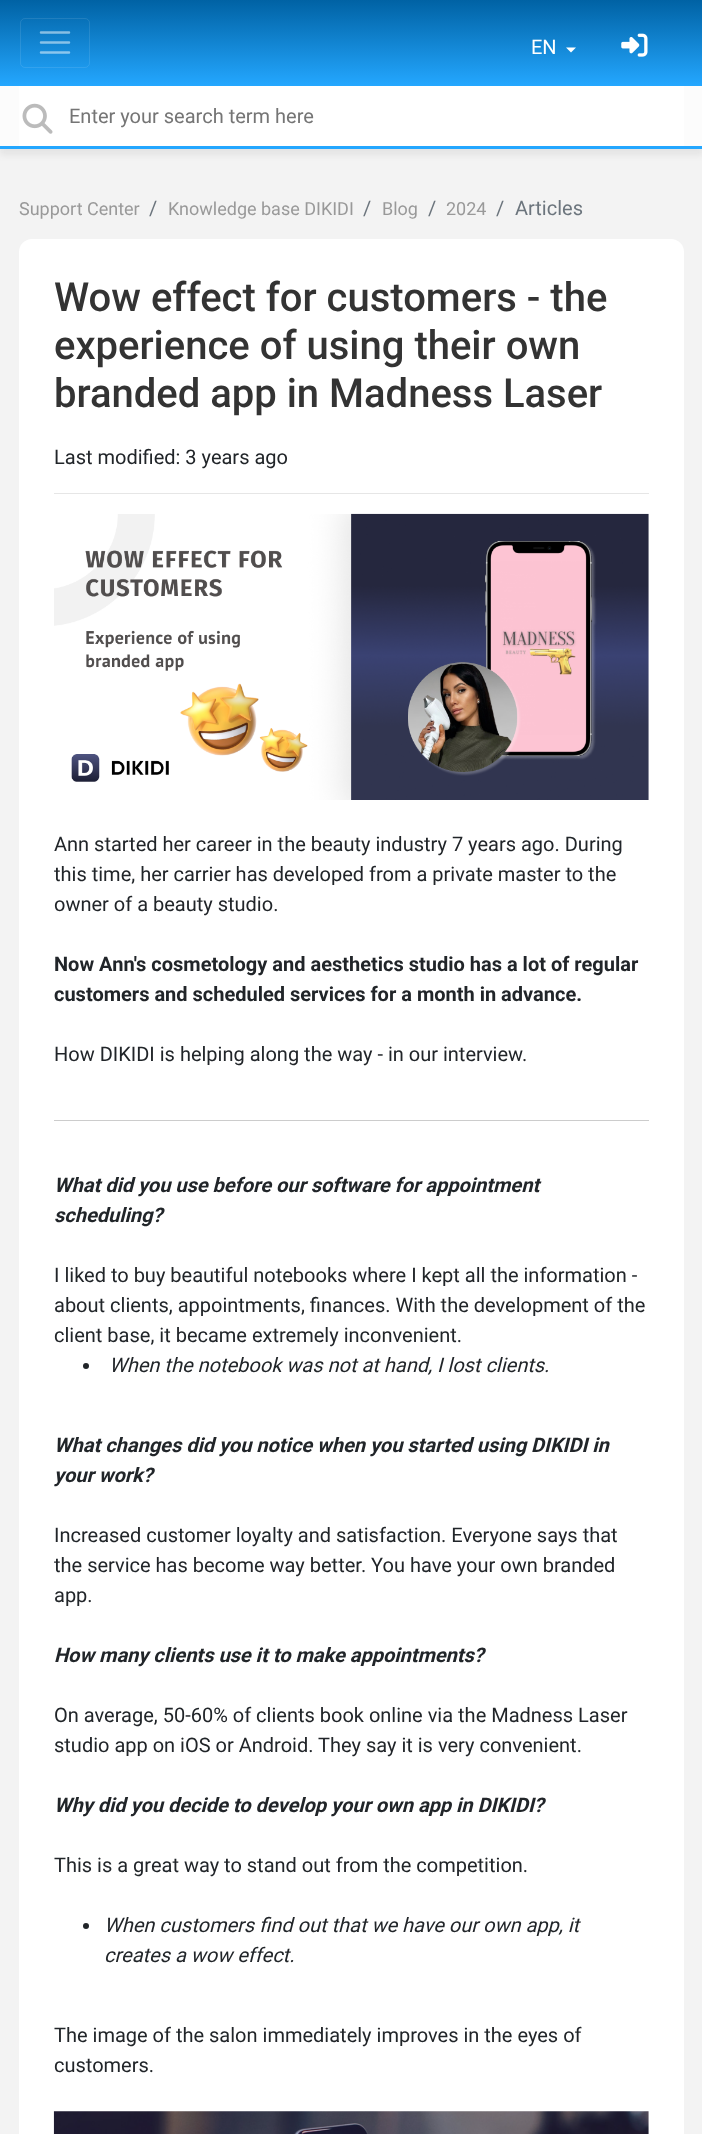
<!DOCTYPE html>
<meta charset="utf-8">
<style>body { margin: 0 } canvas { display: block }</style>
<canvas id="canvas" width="702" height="2134"></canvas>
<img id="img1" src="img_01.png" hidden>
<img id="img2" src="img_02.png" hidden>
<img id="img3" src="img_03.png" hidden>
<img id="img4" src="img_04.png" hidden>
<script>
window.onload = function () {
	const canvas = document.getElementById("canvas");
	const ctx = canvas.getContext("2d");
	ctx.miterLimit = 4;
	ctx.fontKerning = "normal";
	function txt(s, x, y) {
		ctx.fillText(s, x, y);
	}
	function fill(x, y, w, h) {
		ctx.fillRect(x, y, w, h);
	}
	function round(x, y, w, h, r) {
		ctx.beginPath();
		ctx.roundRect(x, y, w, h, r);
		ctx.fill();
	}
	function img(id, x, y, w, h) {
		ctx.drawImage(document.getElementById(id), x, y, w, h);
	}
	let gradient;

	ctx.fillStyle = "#F3F3F3";
	fill(0, 0, 702, 2134);
	gradient = ctx.createLinearGradient(351, 0, 351, 86);
	gradient.addColorStop(0, "#0062A4");
	gradient.addColorStop(1, "#24A7FF");
	ctx.fillStyle = gradient;
	fill(0, 0, 702, 86);
	ctx.beginPath();
	ctx.roundRect(20.5, 18.5, 69, 49, 4.5);
	ctx.strokeStyle = "rgba(255, 255, 255, 0.1)";
	ctx.stroke();
	ctx.beginPath();
	ctx.moveTo(41, 32.5);
	ctx.lineTo(69, 32.5);
	ctx.moveTo(41, 42.5);
	ctx.lineTo(69, 42.5);
	ctx.moveTo(41, 52.5);
	ctx.lineTo(69, 52.5);
	ctx.strokeStyle = "rgba(255, 255, 255, 0.5)";
	ctx.lineWidth = 2.5;
	ctx.lineCap = "round";
	ctx.stroke();
	ctx.fillStyle = "#FFFFFF";
	ctx.beginPath();
	ctx.moveTo(566, 47.5);
	ctx.lineTo(576, 47.5);
	ctx.lineTo(571, 52.5);
	ctx.closePath();
	ctx.fill();
	img("img1", 621, 33, 27, 24);
	ctx.fillStyle = "rgba(100, 100, 100, 0.1)";
	ctx.filter = "blur(3px)";
	ctx.beginPath();
	ctx.rect(0, 93, 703, 62);
	ctx.fill();
	ctx.filter = "none";
	ctx.fillStyle = "#FCFCFC";
	fill(0, 86, 702, 60);
	ctx.fillStyle = "#24A7FF";
	fill(0, 146, 702, 3);
	ctx.fillStyle = "#FFFFFF";
	fill(19, 86, 665, 60);
	img("img2", 22, 103, 31, 31);
	round(19, 239, 665, 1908, 13);
	ctx.fillStyle = "#E6E6E6";
	fill(54, 493, 595, 1);
	img("img3", 54, 513, 595, 287);
	ctx.fillStyle = "#CCCCCC";
	fill(54, 1120, 595, 1);
	ctx.fillStyle = "#212529";
	ctx.beginPath();
	ctx.arc(86, 1366, 3, 0, Math.PI * 2);
	ctx.fill();
	ctx.beginPath();
	ctx.arc(86, 1926, 3, 0, Math.PI * 2);
	ctx.fill();
	img("img4", 53, 2111, 596, 23);
	ctx.font = "20px Roboto";
	ctx.fillStyle = "#FFFFFF";
	txt("EN", 531, 54);
	ctx.fillStyle = "#757575";
	txt("Enter your search term here", 69, 123);
	ctx.font = "18px Roboto";
	ctx.fillStyle = "#999999";
	txt("Support Center", 19, 215);
	ctx.font = "20px Roboto";
	ctx.fillStyle = "#6C757D";
	txt("/", 149, 215);
	ctx.font = "18px Roboto";
	ctx.fillStyle = "#999999";
	txt("Knowledge base DIKIDI", 168, 215);
	ctx.font = "20px Roboto";
	ctx.fillStyle = "#6C757D";
	txt("/", 363, 215);
	ctx.font = "18px Roboto";
	ctx.fillStyle = "#999999";
	txt("Blog", 382, 215);
	ctx.font = "20px Roboto";
	ctx.fillStyle = "#6C757D";
	txt("/", 428, 215);
	ctx.font = "18px Roboto";
	ctx.fillStyle = "#999999";
	txt("2024", 446, 215);
	ctx.font = "20px Roboto";
	ctx.fillStyle = "#6C757D";
	txt("/", 496, 215);
	txt("Articles", 515, 215);
	ctx.font = "500 40px Roboto";
	ctx.fillStyle = "#333333";
	txt("Wow effect for customers - the", 54, 311);
	txt("experience of using their own", 54, 359);
	txt("branded app in Madness Laser", 54, 407);
	ctx.font = "20px Roboto";
	ctx.fillStyle = "#212529";
	txt("Last modified: 3 years ago", 54, 464);
	txt("Ann started her career in the beauty industry 7 years ago. During", 54, 851);
	txt("this time, her carrier has developed from a private master to the", 54, 881);
	txt("owner of a beauty studio.", 54, 911);
	ctx.font = "bold 20px Roboto";
	txt("Now Ann's cosmetology and aesthetics studio has a lot of regular", 54, 971);
	txt("customers and scheduled services for a month in advance.", 54, 1001);
	ctx.font = "20px Roboto";
	txt("How DIKIDI is helping along the way - in our interview.", 54, 1061);
	ctx.font = "italic bold 20px Roboto";
	txt("What did you use before our software for appointment", 54, 1192);
	txt("scheduling?", 54, 1222);
	ctx.font = "20px Roboto";
	txt("I liked to buy beautiful notebooks where I kept all the information -", 54, 1282);
	txt("about clients, appointments, finances. With the development of the", 54, 1312);
	txt("client base, it became extremely inconvenient.", 54, 1342);
	ctx.font = "italic 20px Roboto";
	txt("When the notebook was not at hand, I lost clients.", 109, 1372);
	ctx.font = "italic bold 20px Roboto";
	txt("What changes did you notice when you started using DIKIDI in", 54, 1452);
	txt("your work?", 54, 1482);
	ctx.font = "20px Roboto";
	txt("Increased customer loyalty and satisfaction. Everyone says that", 54, 1542);
	txt("the service has become way better. You have your own branded", 54, 1572);
	txt("app.", 54, 1602);
	ctx.font = "italic bold 20px Roboto";
	txt("How many clients use it to make appointments?", 54, 1662);
	ctx.font = "20px Roboto";
	txt("On average, 50-60% of clients book online via the Madness Laser", 54, 1722);
	txt("studio app on iOS or Android. They say it is very convenient.", 54, 1752);
	ctx.font = "italic bold 20px Roboto";
	txt("Why did you decide to develop your own app in DIKIDI?", 54, 1812);
	ctx.font = "20px Roboto";
	txt("This is a great way to stand out from the competition.", 54, 1872);
	ctx.font = "italic 20px Roboto";
	txt("When customers find out that we have our own app, it", 104, 1932);
	txt("creates a wow effect.", 104, 1962);
	ctx.font = "20px Roboto";
	txt("The image of the salon immediately improves in the eyes of", 54, 2042);
	txt("customers.", 54, 2072);
};
</script>
